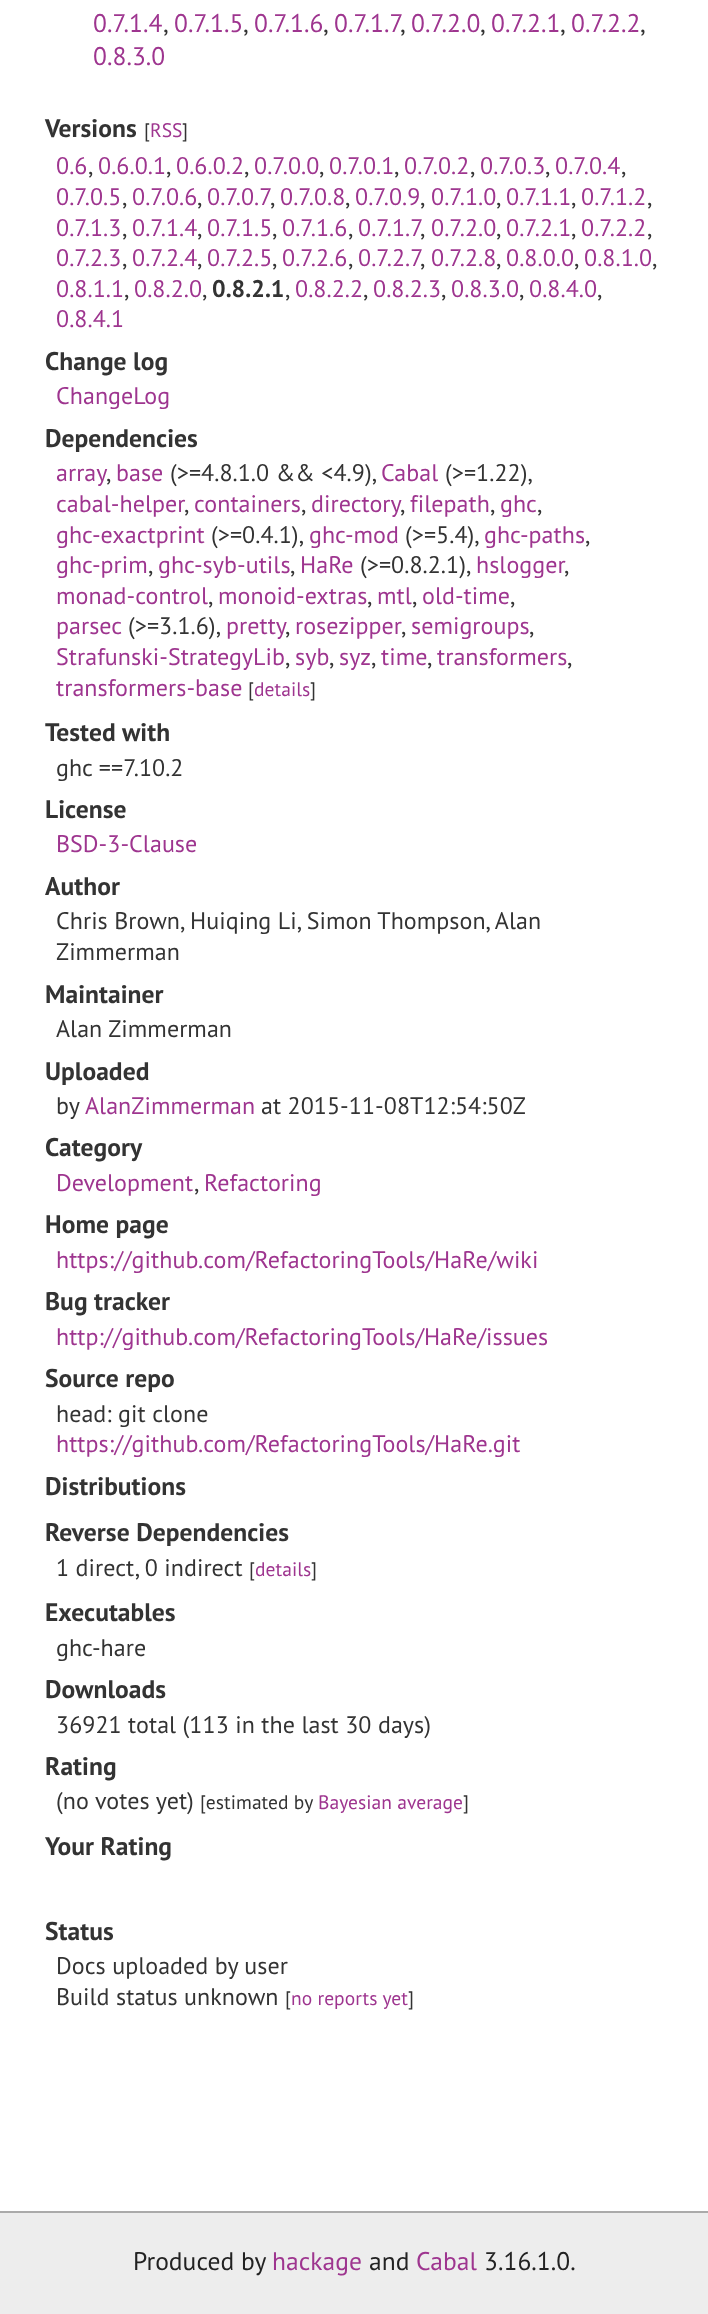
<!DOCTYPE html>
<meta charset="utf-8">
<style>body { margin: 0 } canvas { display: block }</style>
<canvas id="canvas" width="708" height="2314"></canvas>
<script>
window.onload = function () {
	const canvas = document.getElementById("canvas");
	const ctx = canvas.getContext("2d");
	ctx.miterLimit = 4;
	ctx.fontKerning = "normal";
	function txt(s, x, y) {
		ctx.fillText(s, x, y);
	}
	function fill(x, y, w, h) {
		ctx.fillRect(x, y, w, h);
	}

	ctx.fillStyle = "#FFFFFF";
	fill(0, 0, 708, 2314);
	ctx.fillStyle = "#EDEDED";
	fill(0, 2213, 708, 101);
	ctx.fillStyle = "#AAAAAA";
	fill(0, 2211, 708, 2);
	ctx.letterSpacing = "0.05px";
	ctx.font = "25.5px PT Sans";
	ctx.fillStyle = "#9E358F";
	txt("0.7.1.4", 93, 32);
	ctx.fillStyle = "#333333";
	txt(",", 163, 32);
	ctx.fillStyle = "#9E358F";
	txt("0.7.1.5", 174, 32);
	ctx.fillStyle = "#333333";
	txt(",", 243, 32);
	ctx.fillStyle = "#9E358F";
	txt("0.7.1.6", 254, 32);
	ctx.fillStyle = "#333333";
	txt(",", 323, 32);
	ctx.fillStyle = "#9E358F";
	txt("0.7.1.7", 334, 32);
	ctx.fillStyle = "#333333";
	txt(",", 400, 32);
	ctx.fillStyle = "#9E358F";
	txt("0.7.2.0", 411, 32);
	ctx.fillStyle = "#333333";
	txt(",", 480, 32);
	ctx.fillStyle = "#9E358F";
	txt("0.7.2.1", 491, 32);
	ctx.fillStyle = "#333333";
	txt(",", 560, 32);
	ctx.fillStyle = "#9E358F";
	txt("0.7.2.2", 571, 32);
	ctx.fillStyle = "#333333";
	txt(",", 640, 32);
	ctx.fillStyle = "#9E358F";
	txt("0.8.3.0", 93, 65);
	ctx.font = "bold 25.5px PT Sans";
	ctx.fillStyle = "#333333";
	txt("Versions", 45, 137);
	ctx.font = "19.5px PT Sans";
	txt("[", 144, 137);
	ctx.fillStyle = "#9E358F";
	txt("RSS", 150, 137);
	ctx.fillStyle = "#333333";
	txt("]", 182, 137);
	ctx.font = "24px PT Sans";
	ctx.fillStyle = "#9E358F";
	txt("0.6", 56, 174);
	ctx.fillStyle = "#333333";
	txt(",", 88, 174);
	ctx.fillStyle = "#9E358F";
	txt("0.6.0.1", 98, 174);
	ctx.fillStyle = "#333333";
	txt(",", 166, 174);
	ctx.fillStyle = "#9E358F";
	txt("0.6.0.2", 176, 174);
	ctx.fillStyle = "#333333";
	txt(",", 244, 174);
	ctx.fillStyle = "#9E358F";
	txt("0.7.0.0", 254, 174);
	ctx.fillStyle = "#333333";
	txt(",", 319, 174);
	ctx.fillStyle = "#9E358F";
	txt("0.7.0.1", 329, 174);
	ctx.fillStyle = "#333333";
	txt(",", 394, 174);
	ctx.fillStyle = "#9E358F";
	txt("0.7.0.2", 404, 174);
	ctx.fillStyle = "#333333";
	txt(",", 470, 174);
	ctx.fillStyle = "#9E358F";
	txt("0.7.0.3", 480, 174);
	ctx.fillStyle = "#333333";
	txt(",", 545, 174);
	ctx.fillStyle = "#9E358F";
	txt("0.7.0.4", 555, 174);
	ctx.fillStyle = "#333333";
	txt(",", 621, 174);
	ctx.fillStyle = "#9E358F";
	txt("0.7.0.5", 56, 205);
	ctx.fillStyle = "#333333";
	txt(",", 122, 205);
	ctx.fillStyle = "#9E358F";
	txt("0.7.0.6", 132, 205);
	ctx.fillStyle = "#333333";
	txt(",", 197, 205);
	ctx.fillStyle = "#9E358F";
	txt("0.7.0.7", 207, 205);
	ctx.fillStyle = "#333333";
	txt(",", 270, 205);
	ctx.fillStyle = "#9E358F";
	txt("0.7.0.8", 280, 205);
	ctx.fillStyle = "#333333";
	txt(",", 345, 205);
	ctx.fillStyle = "#9E358F";
	txt("0.7.0.9", 355, 205);
	ctx.fillStyle = "#333333";
	txt(",", 420, 205);
	ctx.fillStyle = "#9E358F";
	txt("0.7.1.0", 431, 205);
	ctx.fillStyle = "#333333";
	txt(",", 496, 205);
	ctx.fillStyle = "#9E358F";
	txt("0.7.1.1", 506, 205);
	ctx.fillStyle = "#333333";
	txt(",", 571, 205);
	ctx.fillStyle = "#9E358F";
	txt("0.7.1.2", 581, 205);
	ctx.fillStyle = "#333333";
	txt(",", 647, 205);
	ctx.fillStyle = "#9E358F";
	txt("0.7.1.3", 56, 236);
	ctx.fillStyle = "#333333";
	txt(",", 122, 236);
	ctx.fillStyle = "#9E358F";
	txt("0.7.1.4", 132, 236);
	ctx.fillStyle = "#333333";
	txt(",", 197, 236);
	ctx.fillStyle = "#9E358F";
	txt("0.7.1.5", 207, 236);
	ctx.fillStyle = "#333333";
	txt(",", 272, 236);
	ctx.fillStyle = "#9E358F";
	txt("0.7.1.6", 282, 236);
	ctx.fillStyle = "#333333";
	txt(",", 348, 236);
	ctx.fillStyle = "#9E358F";
	txt("0.7.1.7", 358, 236);
	ctx.fillStyle = "#333333";
	txt(",", 420, 236);
	ctx.fillStyle = "#9E358F";
	txt("0.7.2.0", 431, 236);
	ctx.fillStyle = "#333333";
	txt(",", 496, 236);
	ctx.fillStyle = "#9E358F";
	txt("0.7.2.1", 506, 236);
	ctx.fillStyle = "#333333";
	txt(",", 571, 236);
	ctx.fillStyle = "#9E358F";
	txt("0.7.2.2", 581, 236);
	ctx.fillStyle = "#333333";
	txt(",", 647, 236);
	ctx.fillStyle = "#9E358F";
	txt("0.7.2.3", 56, 266);
	ctx.fillStyle = "#333333";
	txt(",", 122, 266);
	ctx.fillStyle = "#9E358F";
	txt("0.7.2.4", 132, 266);
	ctx.fillStyle = "#333333";
	txt(",", 197, 266);
	ctx.fillStyle = "#9E358F";
	txt("0.7.2.5", 207, 266);
	ctx.fillStyle = "#333333";
	txt(",", 272, 266);
	ctx.fillStyle = "#9E358F";
	txt("0.7.2.6", 282, 266);
	ctx.fillStyle = "#333333";
	txt(",", 348, 266);
	ctx.fillStyle = "#9E358F";
	txt("0.7.2.7", 358, 266);
	ctx.fillStyle = "#333333";
	txt(",", 420, 266);
	ctx.fillStyle = "#9E358F";
	txt("0.7.2.8", 431, 266);
	ctx.fillStyle = "#333333";
	txt(",", 496, 266);
	ctx.fillStyle = "#9E358F";
	txt("0.8.0.0", 506, 266);
	ctx.fillStyle = "#333333";
	txt(",", 574, 266);
	ctx.fillStyle = "#9E358F";
	txt("0.8.1.0", 584, 266);
	ctx.fillStyle = "#333333";
	txt(",", 652, 266);
	ctx.fillStyle = "#9E358F";
	txt("0.8.1.1", 56, 297);
	ctx.fillStyle = "#333333";
	txt(",", 124, 297);
	ctx.fillStyle = "#9E358F";
	txt("0.8.2.0", 134, 297);
	ctx.fillStyle = "#333333";
	txt(",", 202, 297);
	ctx.font = "bold 24px PT Sans";
	txt("0.8.2.1", 212, 297);
	ctx.font = "24px PT Sans";
	txt(",", 285, 297);
	ctx.fillStyle = "#9E358F";
	txt("0.8.2.2", 295, 297);
	ctx.fillStyle = "#333333";
	txt(",", 363, 297);
	ctx.fillStyle = "#9E358F";
	txt("0.8.2.3", 373, 297);
	ctx.fillStyle = "#333333";
	txt(",", 441, 297);
	ctx.fillStyle = "#9E358F";
	txt("0.8.3.0", 451, 297);
	ctx.fillStyle = "#333333";
	txt(",", 519, 297);
	ctx.fillStyle = "#9E358F";
	txt("0.8.4.0", 529, 297);
	ctx.fillStyle = "#333333";
	txt(",", 597, 297);
	ctx.fillStyle = "#9E358F";
	txt("0.8.4.1", 56, 327);
	ctx.font = "bold 25.5px PT Sans";
	ctx.fillStyle = "#333333";
	txt("Change log", 45, 370);
	ctx.font = "24px PT Sans";
	ctx.fillStyle = "#9E358F";
	txt("ChangeLog", 56, 404);
	ctx.font = "bold 25.5px PT Sans";
	ctx.fillStyle = "#333333";
	txt("Dependencies", 45, 447);
	ctx.font = "24px PT Sans";
	ctx.fillStyle = "#9E358F";
	txt("array", 56, 481);
	ctx.fillStyle = "#333333";
	txt(",", 106, 481);
	ctx.fillStyle = "#9E358F";
	txt("base", 116, 481);
	ctx.fillStyle = "#333333";
	txt("(>=4.8.1.0 && <4.9),", 170, 481);
	ctx.fillStyle = "#9E358F";
	txt("Cabal", 381, 481);
	ctx.fillStyle = "#333333";
	txt("(>=1.22),", 445, 481);
	ctx.fillStyle = "#9E358F";
	txt("cabal-helper", 56, 512);
	ctx.fillStyle = "#333333";
	txt(",", 184, 512);
	ctx.fillStyle = "#9E358F";
	txt("containers", 194, 512);
	ctx.fillStyle = "#333333";
	txt(",", 301, 512);
	ctx.fillStyle = "#9E358F";
	txt("directory", 311, 512);
	ctx.fillStyle = "#333333";
	txt(",", 400, 512);
	ctx.fillStyle = "#9E358F";
	txt("filepath", 410, 512);
	ctx.fillStyle = "#333333";
	txt(",", 490, 512);
	ctx.fillStyle = "#9E358F";
	txt("ghc", 500, 512);
	ctx.fillStyle = "#333333";
	txt(",", 537, 512);
	ctx.fillStyle = "#9E358F";
	txt("ghc-exactprint", 56, 543);
	ctx.fillStyle = "#333333";
	txt("(>=0.4.1),", 211, 543);
	ctx.fillStyle = "#9E358F";
	txt("ghc-mod", 309, 543);
	ctx.fillStyle = "#333333";
	txt("(>=5.4),", 405, 543);
	ctx.fillStyle = "#9E358F";
	txt("ghc-paths", 484, 543);
	ctx.fillStyle = "#333333";
	txt(",", 585, 543);
	ctx.fillStyle = "#9E358F";
	txt("ghc-prim", 56, 573);
	ctx.fillStyle = "#333333";
	txt(",", 148, 573);
	ctx.fillStyle = "#9E358F";
	txt("ghc-syb-utils", 158, 573);
	ctx.fillStyle = "#333333";
	txt(",", 290, 573);
	ctx.fillStyle = "#9E358F";
	txt("HaRe", 300, 573);
	ctx.fillStyle = "#333333";
	txt("(>=0.8.2.1),", 360, 573);
	ctx.fillStyle = "#9E358F";
	txt("hslogger", 476, 573);
	ctx.fillStyle = "#333333";
	txt(",", 564, 573);
	ctx.fillStyle = "#9E358F";
	txt("monad-control", 56, 604);
	ctx.fillStyle = "#333333";
	txt(",", 208, 604);
	ctx.fillStyle = "#9E358F";
	txt("monoid-extras", 218, 604);
	ctx.fillStyle = "#333333";
	txt(",", 367, 604);
	ctx.fillStyle = "#9E358F";
	txt("mtl", 377, 604);
	ctx.fillStyle = "#333333";
	txt(",", 412, 604);
	ctx.fillStyle = "#9E358F";
	txt("old-time", 422, 604);
	ctx.fillStyle = "#333333";
	txt(",", 510, 604);
	ctx.fillStyle = "#9E358F";
	txt("parsec", 56, 634);
	ctx.fillStyle = "#333333";
	txt("(>=3.1.6),", 128, 634);
	ctx.fillStyle = "#9E358F";
	txt("pretty", 226, 634);
	ctx.fillStyle = "#333333";
	txt(",", 285, 634);
	ctx.fillStyle = "#9E358F";
	txt("rosezipper", 295, 634);
	ctx.fillStyle = "#333333";
	txt(",", 401, 634);
	ctx.fillStyle = "#9E358F";
	txt("semigroups", 411, 634);
	ctx.fillStyle = "#333333";
	txt(",", 529, 634);
	ctx.fillStyle = "#9E358F";
	txt("Strafunski-StrategyLib", 56, 665);
	ctx.fillStyle = "#333333";
	txt(",", 285, 665);
	ctx.fillStyle = "#9E358F";
	txt("syb", 295, 665);
	ctx.fillStyle = "#333333";
	txt(",", 329, 665);
	ctx.fillStyle = "#9E358F";
	txt("syz", 339, 665);
	ctx.fillStyle = "#333333";
	txt(",", 371, 665);
	ctx.fillStyle = "#9E358F";
	txt("time", 381, 665);
	ctx.fillStyle = "#333333";
	txt(",", 427, 665);
	ctx.fillStyle = "#9E358F";
	txt("transformers", 437, 665);
	ctx.fillStyle = "#333333";
	txt(",", 567, 665);
	ctx.fillStyle = "#9E358F";
	txt("transformers-base", 56, 696);
	ctx.font = "19.5px PT Sans";
	ctx.fillStyle = "#333333";
	txt("[", 248, 696);
	ctx.fillStyle = "#9E358F";
	txt("details", 254, 696);
	ctx.fillStyle = "#333333";
	txt("]", 310, 696);
	ctx.font = "bold 25.5px PT Sans";
	txt("Tested with", 45, 741);
	ctx.font = "24px PT Sans";
	txt("ghc ==7.10.2", 56, 776);
	ctx.font = "bold 25.5px PT Sans";
	txt("License", 45, 818);
	ctx.font = "24px PT Sans";
	ctx.fillStyle = "#9E358F";
	txt("BSD-3-Clause", 56, 852);
	ctx.font = "bold 25.5px PT Sans";
	ctx.fillStyle = "#333333";
	txt("Author", 45, 895);
	ctx.font = "24px PT Sans";
	txt("Chris Brown, Huiqing Li, Simon Thompson, Alan", 56, 929);
	txt("Zimmerman", 56, 960);
	ctx.font = "bold 25.5px PT Sans";
	txt("Maintainer", 45, 1003);
	ctx.font = "24px PT Sans";
	txt("Alan Zimmerman", 56, 1037);
	ctx.font = "bold 25.5px PT Sans";
	txt("Uploaded", 45, 1080);
	ctx.font = "24px PT Sans";
	txt("by", 56, 1114);
	ctx.fillStyle = "#9E358F";
	txt("AlanZimmerman", 85, 1114);
	ctx.fillStyle = "#333333";
	txt("at 2015-11-08T12:54:50Z", 261, 1114);
	ctx.font = "bold 25.5px PT Sans";
	txt("Category", 45, 1156);
	ctx.font = "24px PT Sans";
	ctx.fillStyle = "#9E358F";
	txt("Development", 56, 1191);
	ctx.fillStyle = "#333333";
	txt(",", 194, 1191);
	ctx.fillStyle = "#9E358F";
	txt("Refactoring", 204, 1191);
	ctx.font = "bold 25.5px PT Sans";
	ctx.fillStyle = "#333333";
	txt("Home page", 45, 1233);
	ctx.font = "24px PT Sans";
	ctx.fillStyle = "#9E358F";
	txt("https://github.com/RefactoringTools/HaRe/wiki", 56, 1268);
	ctx.font = "bold 25.5px PT Sans";
	ctx.fillStyle = "#333333";
	txt("Bug tracker", 45, 1310);
	ctx.font = "24px PT Sans";
	ctx.fillStyle = "#9E358F";
	txt("http://github.com/RefactoringTools/HaRe/issues", 56, 1345);
	ctx.font = "bold 25.5px PT Sans";
	ctx.fillStyle = "#333333";
	txt("Source repo", 45, 1387);
	ctx.font = "24px PT Sans";
	txt("head: git clone", 56, 1422);
	ctx.fillStyle = "#9E358F";
	txt("https://github.com/RefactoringTools/HaRe.git", 56, 1452);
	ctx.font = "bold 25.5px PT Sans";
	ctx.fillStyle = "#333333";
	txt("Distributions", 45, 1495);
	txt("Reverse Dependencies", 45, 1541);
	ctx.font = "24px PT Sans";
	txt("1 direct, 0 indirect", 56, 1576);
	ctx.font = "19.5px PT Sans";
	txt("[", 249, 1576);
	ctx.fillStyle = "#9E358F";
	txt("details", 255, 1576);
	ctx.fillStyle = "#333333";
	txt("]", 311, 1576);
	ctx.font = "bold 25.5px PT Sans";
	txt("Executables", 45, 1621);
	ctx.font = "24px PT Sans";
	txt("ghc-hare", 56, 1656);
	ctx.font = "bold 25.5px PT Sans";
	txt("Downloads", 45, 1698);
	ctx.font = "24px PT Sans";
	txt("36921 total (113 in the last 30 days)", 56, 1733);
	ctx.font = "bold 25.5px PT Sans";
	txt("Rating", 45, 1775);
	ctx.font = "24px PT Sans";
	txt("(no votes yet)", 56, 1809);
	ctx.font = "19.5px PT Sans";
	txt("[estimated by", 200, 1809);
	ctx.fillStyle = "#9E358F";
	txt("Bayesian average", 318, 1809);
	ctx.fillStyle = "#333333";
	txt("]", 463, 1809);
	ctx.font = "bold 25.5px PT Sans";
	txt("Your Rating", 45, 1855);
	txt("Status", 45, 1940);
	ctx.font = "24px PT Sans";
	txt("Docs uploaded by user", 56, 1974);
	txt("Build status unknown", 56, 2005);
	ctx.font = "19.5px PT Sans";
	txt("[", 285, 2005);
	ctx.fillStyle = "#9E358F";
	txt("no reports yet", 291, 2005);
	ctx.fillStyle = "#333333";
	txt("]", 408, 2005);
	ctx.font = "25.5px PT Sans";
	ctx.fillStyle = "#222222";
	txt("Produced by", 133, 2270);
	ctx.fillStyle = "#9E358F";
	txt("hackage", 272, 2270);
	ctx.fillStyle = "#222222";
	txt("and", 369, 2270);
	ctx.fillStyle = "#9E358F";
	txt("Cabal", 416, 2270);
	ctx.fillStyle = "#222222";
	txt("3.16.1.0.", 484, 2270);
};
</script>
